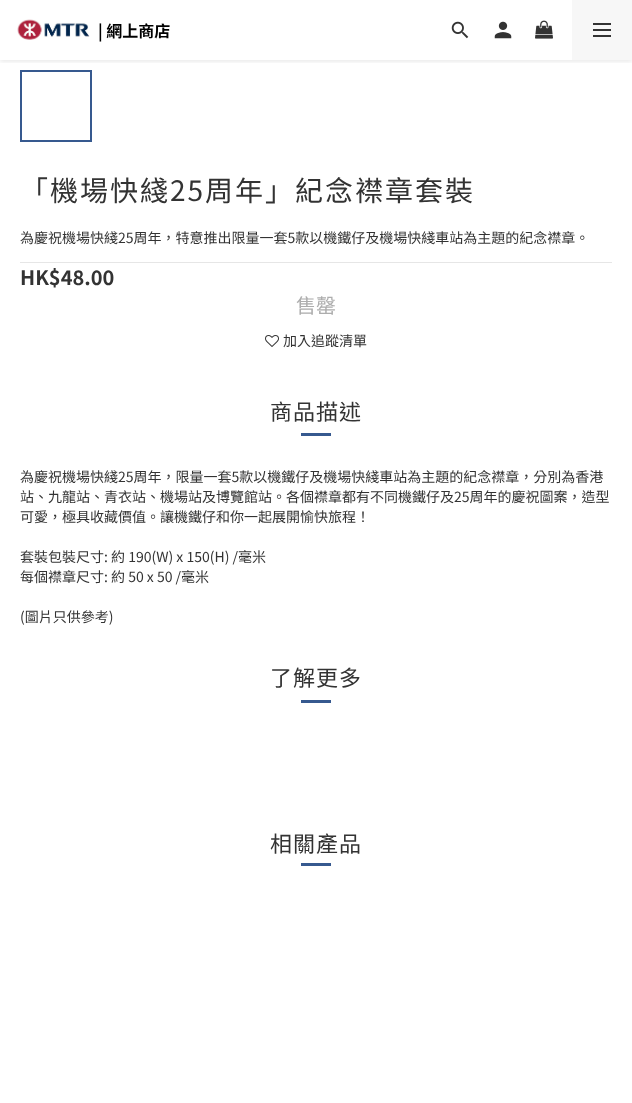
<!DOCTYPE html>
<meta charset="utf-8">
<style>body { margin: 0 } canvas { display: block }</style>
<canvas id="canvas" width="632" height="1103"></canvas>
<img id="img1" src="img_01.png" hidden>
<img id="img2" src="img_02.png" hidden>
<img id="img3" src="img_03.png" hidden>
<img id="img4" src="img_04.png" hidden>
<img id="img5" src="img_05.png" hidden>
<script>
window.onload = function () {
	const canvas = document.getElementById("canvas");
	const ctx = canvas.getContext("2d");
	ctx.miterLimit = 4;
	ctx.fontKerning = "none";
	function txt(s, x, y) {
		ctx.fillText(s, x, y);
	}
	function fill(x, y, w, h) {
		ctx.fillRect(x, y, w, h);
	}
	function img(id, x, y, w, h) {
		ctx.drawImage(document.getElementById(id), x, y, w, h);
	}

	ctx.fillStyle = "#FFFFFF";
	fill(0, 0, 632, 1103);
	ctx.save();
	ctx.beginPath();
	ctx.rect(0, 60, 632, 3);
	ctx.clip();
	ctx.fillStyle = "rgba(0, 0, 0, 0.08)";
	ctx.filter = "blur(2px)";
	ctx.beginPath();
	ctx.rect(0, 2, 632, 60);
	ctx.fill();
	ctx.filter = "none";
	ctx.restore();
	img("img1", 17, 19, 73, 21);
	img("img2", 451, 21, 18, 18);
	img("img3", 494, 21, 18, 18);
	img("img4", 535, 20, 18, 19);
	ctx.fillStyle = "#F7F7F7";
	fill(572, 0, 60, 60);
	ctx.fillStyle = "#333333";
	fill(593, 29, 18, 2);
	fill(593, 23, 18, 2);
	fill(593, 35, 18, 2);
	ctx.strokeStyle = "#36598F";
	ctx.lineWidth = 2;
	ctx.strokeRect(21, 71, 70, 70);
	ctx.fillStyle = "#E6E6E6";
	fill(20, 262, 592, 1);
	img("img5", 265, 335, 14, 12);
	ctx.fillStyle = "#36598F";
	fill(301, 433, 30, 3);
	fill(301, 700, 30, 3);
	fill(301, 863, 30, 3);
	ctx.font = "bold 16px Noto Sans TC";
	ctx.fillStyle = "#000000";
	txt("| 網上商店", 98, 37);
	ctx.letterSpacing = "2px";
	ctx.font = "28px Noto Sans TC";
	ctx.fillStyle = "#333333";
	txt("「機場快綫25周年」紀念襟章套裝", 20, 201);
	ctx.letterSpacing = "0px";
	ctx.font = "14px Noto Sans TC";
	txt("為慶祝機場快綫25周年，特意推出限量一套5款以機鐵仔及機場快綫車站為主題的紀念襟章。", 20, 243);
	ctx.font = "bold 20px Noto Sans TC";
	txt("HK$48.00", 20, 285);
	ctx.font = "20px Noto Sans TC";
	ctx.fillStyle = "#ADADAD";
	txt("售罄", 296, 313);
	ctx.font = "14px Noto Sans TC";
	ctx.fillStyle = "#333333";
	txt("加入追蹤清單", 283, 346);
	ctx.letterSpacing = "1px";
	ctx.font = "22px Noto Sans TC";
	txt("商品描述", 270, 420);
	ctx.letterSpacing = "0px";
	ctx.font = "14px Noto Sans TC";
	txt("為慶祝機場快綫25周年，限量一套5款以機鐵仔及機場快綫車站為主題的紀念襟章，分別為香港", 20, 482);
	txt("站、九龍站、青衣站、機場站及博覽館站。各個襟章都有不同機鐵仔及25周年的慶祝圖案，造型", 20, 502);
	txt("可愛，極具收藏價值。讓機鐵仔和你一起展開愉快旅程！", 20, 522);
	txt("套裝包裝尺寸: 約 190(W) x 150(H) /毫米", 20, 562);
	txt("每個襟章尺寸: 約 50 x 50 /毫米", 20, 582);
	txt("(圖片只供參考)", 20, 622);
	ctx.letterSpacing = "1px";
	ctx.font = "22px Noto Sans TC";
	txt("了解更多", 270, 686);
	txt("相關產品", 270, 852);
};
</script>
